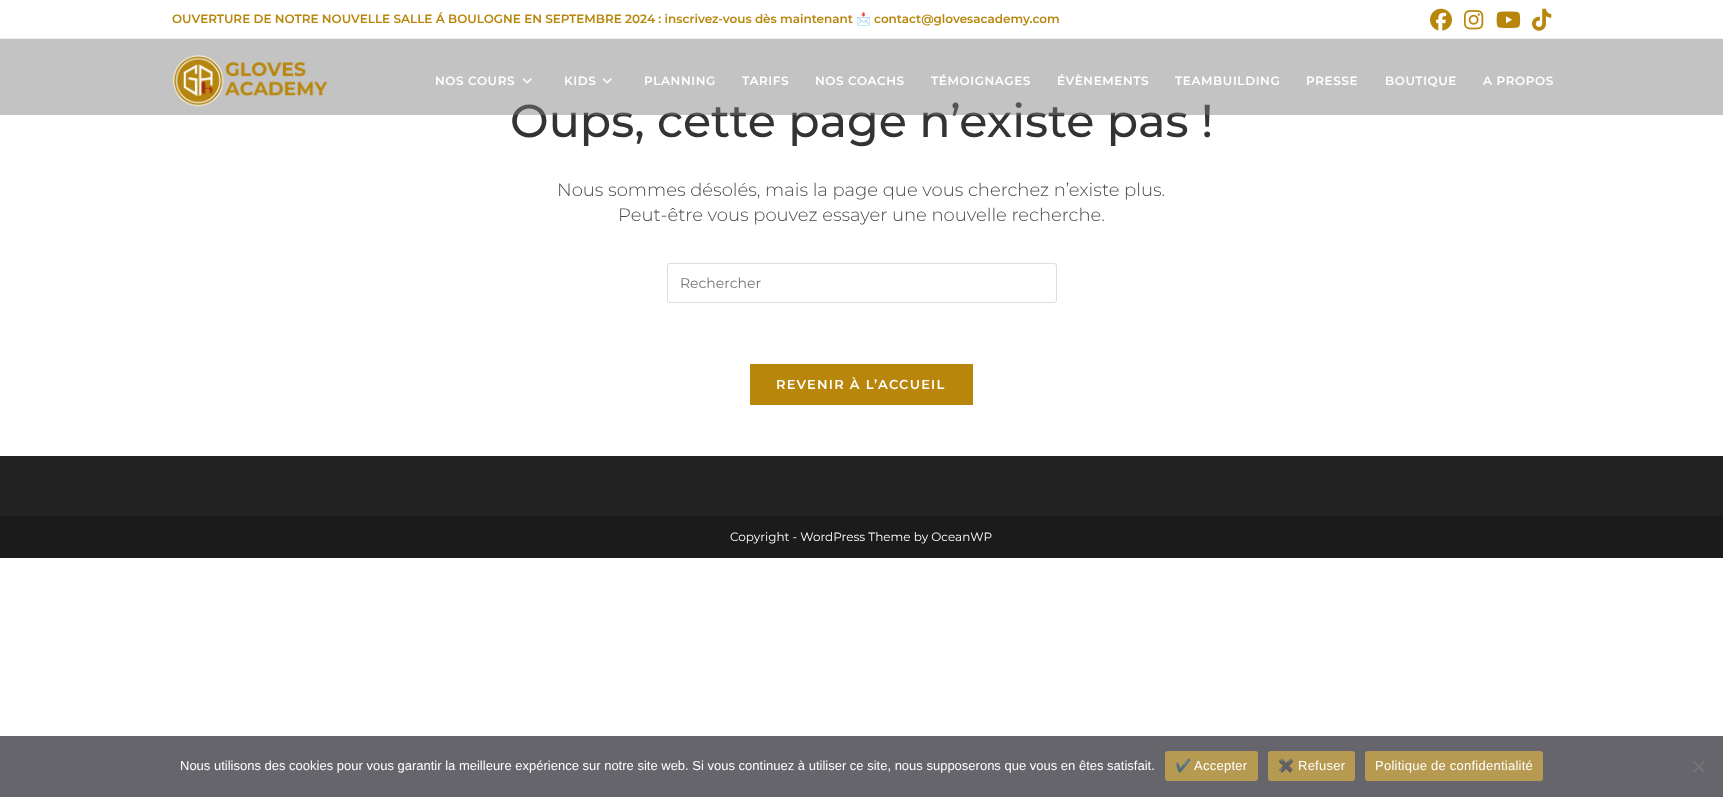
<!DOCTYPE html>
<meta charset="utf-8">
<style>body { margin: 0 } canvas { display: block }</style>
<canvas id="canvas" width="1723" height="797"></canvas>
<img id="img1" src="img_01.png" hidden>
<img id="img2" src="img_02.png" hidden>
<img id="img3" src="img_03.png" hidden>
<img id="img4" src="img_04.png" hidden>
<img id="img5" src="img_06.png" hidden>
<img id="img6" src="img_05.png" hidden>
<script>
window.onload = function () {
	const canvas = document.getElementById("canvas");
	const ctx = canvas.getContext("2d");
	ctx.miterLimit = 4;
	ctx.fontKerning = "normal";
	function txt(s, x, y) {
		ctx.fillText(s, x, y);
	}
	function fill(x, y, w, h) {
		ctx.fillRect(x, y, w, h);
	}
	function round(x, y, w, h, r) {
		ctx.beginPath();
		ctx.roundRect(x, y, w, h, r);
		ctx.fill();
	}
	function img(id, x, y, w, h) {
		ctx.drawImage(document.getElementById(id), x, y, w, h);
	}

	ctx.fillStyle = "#FFFFFF";
	fill(0, 0, 1723, 797);
	ctx.fillStyle = "#F1F1F1";
	fill(0, 38, 1723, 1);
	img("img1", 1430, 8, 22, 23);
	img("img2", 1464, 10, 20, 20);
	img("img3", 1496, 11, 25, 17);
	img("img4", 1532, 8, 20, 23);
	ctx.beginPath();
	ctx.roundRect(667.5, 263.5, 389, 39, 2.5);
	ctx.strokeStyle = "#DDDDDD";
	ctx.stroke();
	ctx.fillStyle = "#B8860B";
	fill(750, 364, 223, 41);
	ctx.fillStyle = "#222222";
	fill(0, 456, 1723, 60);
	ctx.fillStyle = "#1B1B1B";
	fill(0, 516, 1723, 42);
	ctx.fillStyle = "#65656B";
	fill(0, 736, 1723, 61);
	ctx.fillStyle = "#B79A52";
	round(1165, 751, 93, 30, 3);
	round(1268, 751, 87, 30, 3);
	round(1365, 751, 178, 30, 3);
	ctx.fillStyle = "#737376";
	ctx.beginPath();
	ctx.moveTo(1703.5, 760.5);
	ctx.lineTo(1705, 762);
	ctx.lineTo(1694.5, 773);
	ctx.lineTo(1693, 771.5);
	ctx.closePath();
	ctx.fill();
	ctx.beginPath();
	ctx.moveTo(1693, 762);
	ctx.lineTo(1694.5, 760.5);
	ctx.lineTo(1705, 771.5);
	ctx.lineTo(1703.5, 773);
	ctx.closePath();
	ctx.fill();
	ctx.font = "600 12px Montserrat";
	ctx.fillStyle = "#B8860B";
	txt("OUVERTURE DE NOTRE NOUVELLE SALLE Á BOULOGNE EN SEPTEMBRE 2024 : inscrivez-vous dès maintenant", 172, 23);
	ctx.font = "bold 12px Noto Color Emoji";
	txt("📩", 856, 23);
	ctx.font = "600 12px Montserrat";
	txt("contact@glovesacademy.com", 874, 23);
	ctx.font = "500 46px Montserrat";
	ctx.fillStyle = "#333333";
	txt("Oups, cette page n’existe pas !", 510, 137);
	ctx.fillStyle = "rgba(124, 124, 124, 0.46)";
	fill(0, 39, 1723, 76);
	ctx.letterSpacing = "0.6px";
	ctx.font = "600 12px Montserrat";
	ctx.fillStyle = "#FFFFFF";
	txt("A PROPOS", 1483, 85);
	txt("BOUTIQUE", 1385, 85);
	txt("PRESSE", 1306, 85);
	txt("TEAMBUILDING", 1175, 85);
	txt("ÉVÈNEMENTS", 1057, 85);
	txt("TÉMOIGNAGES", 931, 85);
	txt("NOS COACHS", 815, 85);
	txt("TARIFS", 742, 85);
	txt("PLANNING", 644, 85);
	img("img5", 602, 78, 10, 6);
	txt("KIDS", 564, 85);
	img("img5", 522, 78, 10, 6);
	txt("NOS COURS", 435, 85);
	img("img6", 173, 55, 155, 52);
	ctx.letterSpacing = "0px";
	ctx.font = "300 18px Montserrat";
	ctx.fillStyle = "#4A4A4A";
	txt("Nous sommes désolés, mais la page que vous cherchez n’existe plus.", 557, 196);
	txt("Peut-être vous pouvez essayer une nouvelle recherche.", 618, 221);
	ctx.font = "14px Montserrat";
	ctx.fillStyle = "#757575";
	txt("Rechercher", 680, 288);
	ctx.letterSpacing = "1.25px";
	ctx.font = "600 13px Montserrat";
	ctx.fillStyle = "#FFFFFF";
	txt("REVENIR À L’ACCUEIL", 776, 389);
	ctx.letterSpacing = "0px";
	ctx.font = "12px Montserrat";
	txt("Copyright - WordPress Theme by OceanWP", 730, 541);
	ctx.font = "13px Liberation Sans";
	txt("Nous utilisons des cookies pour vous garantir la meilleure expérience sur notre site web. Si vous continuez à utiliser ce site, nous supposerons que vous en êtes satisfait.", 180, 770);
	ctx.letterSpacing = "0.25px";
	ctx.font = "13px Noto Color Emoji";
	txt("✔️", 1175, 770);
	ctx.font = "13px Liberation Sans";
	txt("Accepter", 1194, 770);
	ctx.font = "13px Noto Color Emoji";
	txt("✖️", 1278, 770);
	ctx.font = "13px Liberation Sans";
	txt("Refuser", 1298, 770);
	txt("Politique de confidentialité", 1375, 770);
};
</script>
